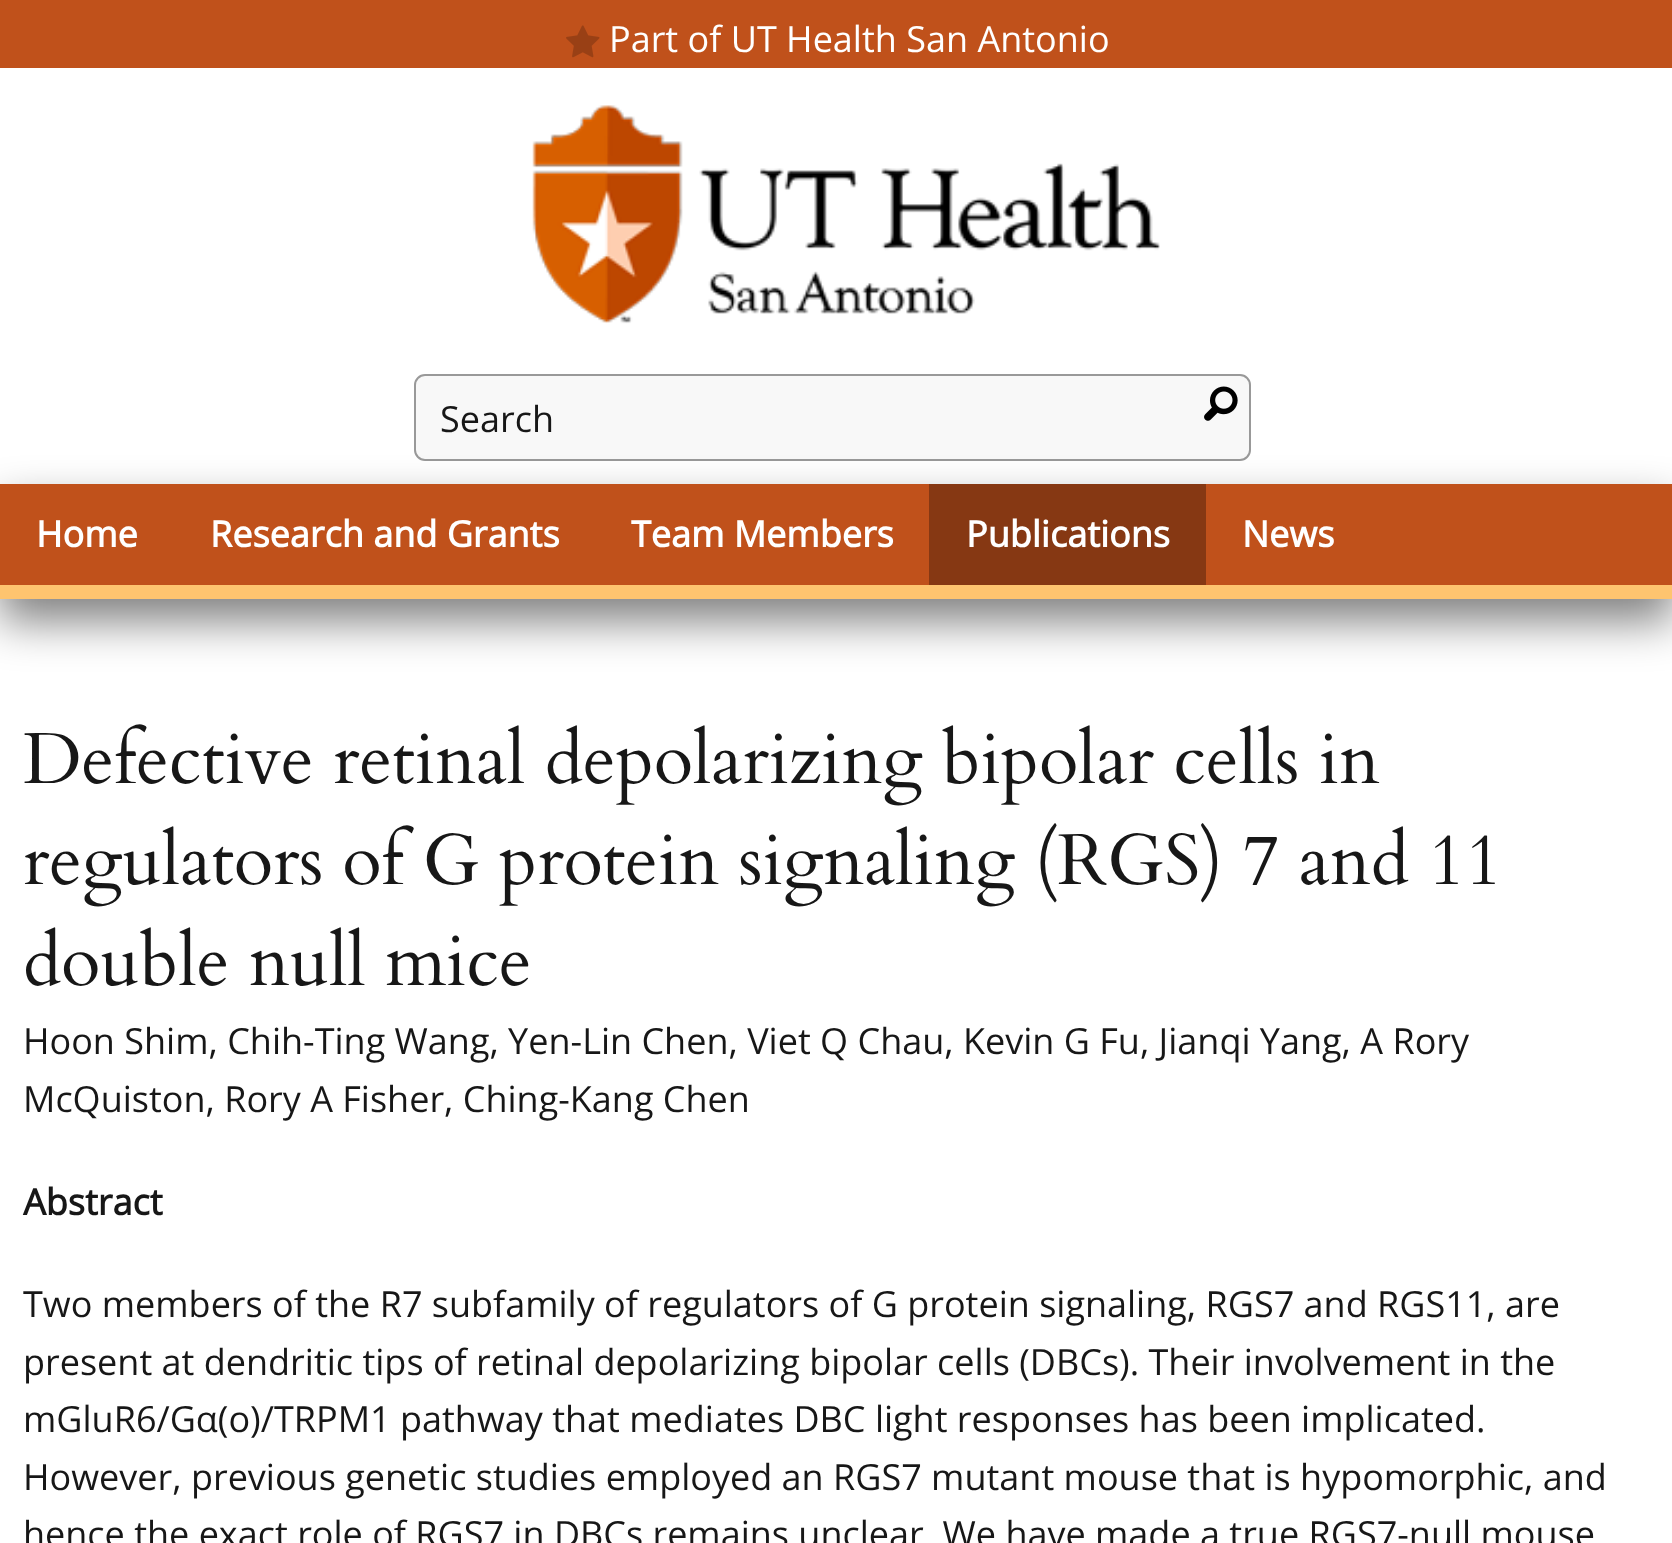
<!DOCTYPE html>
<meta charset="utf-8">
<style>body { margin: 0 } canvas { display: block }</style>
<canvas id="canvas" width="1672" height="1543"></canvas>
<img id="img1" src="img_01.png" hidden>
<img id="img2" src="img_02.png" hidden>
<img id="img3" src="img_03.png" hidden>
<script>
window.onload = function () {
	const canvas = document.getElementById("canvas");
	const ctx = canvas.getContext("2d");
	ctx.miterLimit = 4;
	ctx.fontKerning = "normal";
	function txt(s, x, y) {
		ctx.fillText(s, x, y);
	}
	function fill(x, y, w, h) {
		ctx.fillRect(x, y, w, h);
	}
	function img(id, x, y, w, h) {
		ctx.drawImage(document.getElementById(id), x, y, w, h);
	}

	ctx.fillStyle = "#FFFFFF";
	fill(0, 0, 1672, 1543);
	ctx.fillStyle = "#C0511B";
	fill(0, 0, 1672, 68);
	img("img1", 566, 25, 34, 33);
	img("img2", 532, 105, 628, 219);
	ctx.fillStyle = "#F8F8F8";
	ctx.beginPath();
	ctx.roundRect(415, 375, 835, 85, 10);
	ctx.fill();
	ctx.strokeStyle = "#999999";
	ctx.lineWidth = 2;
	ctx.stroke();
	img("img3", 1204, 386, 34, 35);
	ctx.fillStyle = "rgba(0, 0, 0, 0.5)";
	ctx.filter = "blur(22.5px)";
	ctx.beginPath();
	ctx.rect(0, 506, 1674, 115);
	ctx.fill();
	ctx.filter = "none";
	ctx.fillStyle = "#C0511B";
	fill(0, 484, 1672, 101);
	ctx.fillStyle = "#FEC46F";
	fill(0, 585, 1672, 14);
	ctx.fillStyle = "#863813";
	fill(929, 484, 277, 101);
	ctx.font = "36px Open Sans";
	ctx.fillStyle = "#FFFFFF";
	txt("Part of UT Health San Antonio", 609, 52);
	ctx.fillStyle = "#171717";
	txt("Search", 440, 432);
	ctx.font = "bold 36px Open Sans";
	ctx.fillStyle = "#FFFFFF";
	txt("Home", 36, 547);
	txt("Research and Grants", 210, 547);
	txt("Team Members", 631, 547);
	txt("Publications", 966, 547);
	txt("News", 1242, 547);
	ctx.font = "72px Cardo";
	ctx.fillStyle = "#171717";
	txt("Defective retinal depolarizing bipolar cells in", 23, 783);
	txt("regulators of G protein signaling (RGS) 7 and 11", 23, 884);
	txt("double null mice", 23, 985);
	ctx.font = "36px Open Sans";
	txt("Hoon Shim, Chih-Ting Wang, Yen-Lin Chen, Viet Q Chau, Kevin G Fu, Jianqi Yang, A Rory", 23, 1054);
	txt("McQuiston, Rory A Fisher, Ching-Kang Chen", 23, 1112);
	ctx.font = "bold 36px Open Sans";
	txt("Abstract", 23, 1215);
	ctx.font = "36px Open Sans";
	txt("Two members of the R7 subfamily of regulators of G protein signaling, RGS7 and RGS11, are", 23, 1317);
	txt("present at dendritic tips of retinal depolarizing bipolar cells (DBCs). Their involvement in the", 23, 1375);
	txt("mGluR6/Gα(o)/TRPM1 pathway that mediates DBC light responses has been implicated.", 23, 1432);
	txt("However, previous genetic studies employed an RGS7 mutant mouse that is hypomorphic, and", 23, 1490);
	txt("hence the exact role of RGS7 in DBCs remains unclear. We have made a true RGS7-null mouse", 23, 1547);
};
</script>
